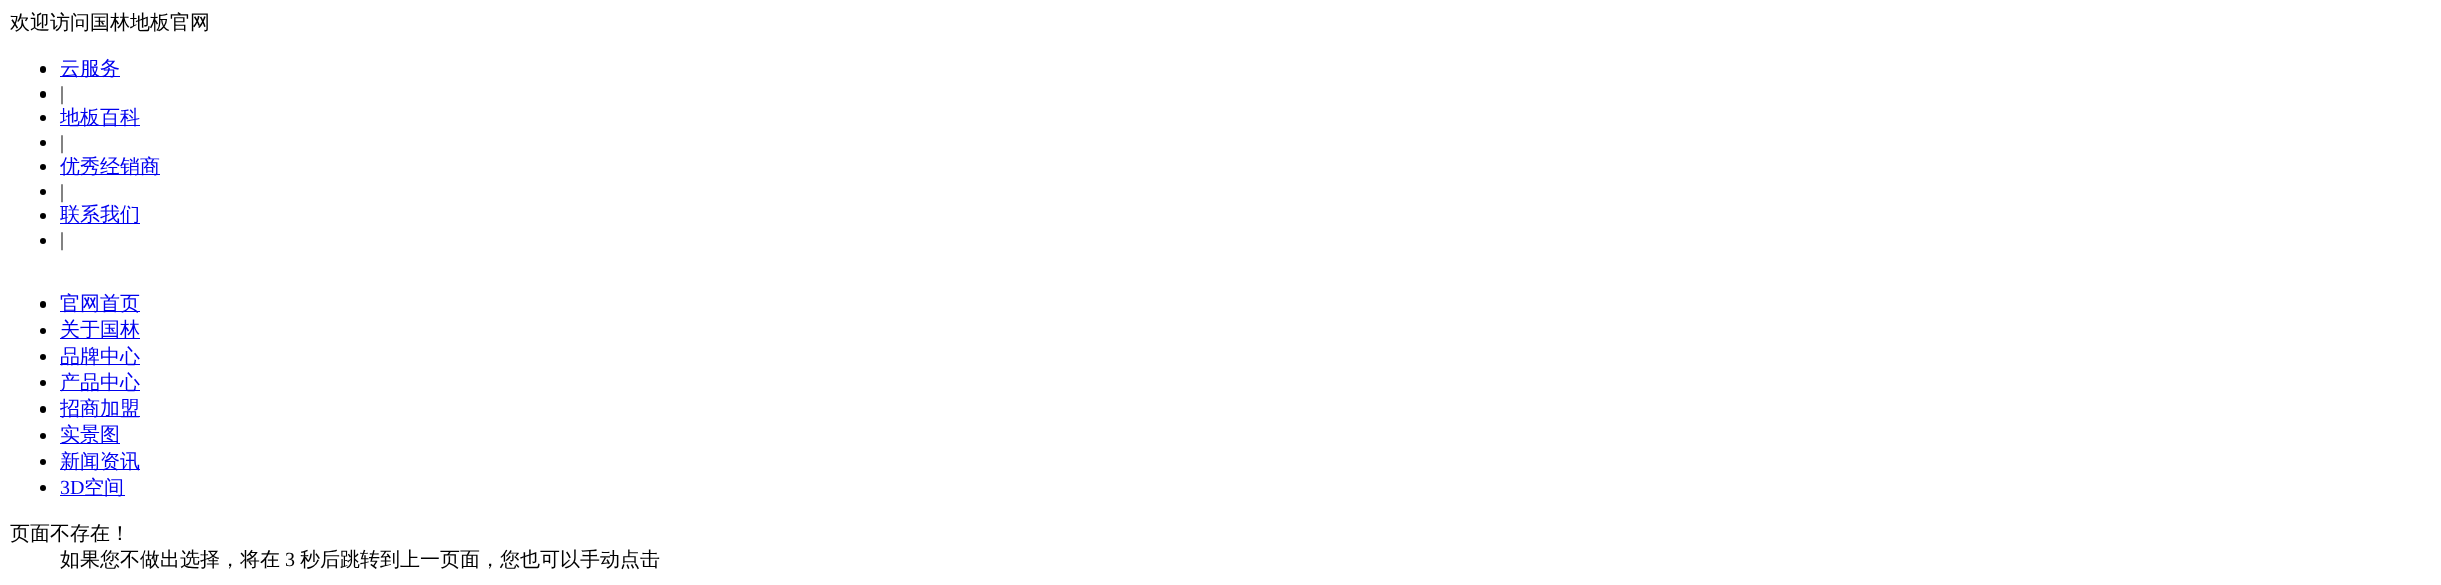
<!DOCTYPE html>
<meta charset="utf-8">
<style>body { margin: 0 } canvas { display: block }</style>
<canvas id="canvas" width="2441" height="585"></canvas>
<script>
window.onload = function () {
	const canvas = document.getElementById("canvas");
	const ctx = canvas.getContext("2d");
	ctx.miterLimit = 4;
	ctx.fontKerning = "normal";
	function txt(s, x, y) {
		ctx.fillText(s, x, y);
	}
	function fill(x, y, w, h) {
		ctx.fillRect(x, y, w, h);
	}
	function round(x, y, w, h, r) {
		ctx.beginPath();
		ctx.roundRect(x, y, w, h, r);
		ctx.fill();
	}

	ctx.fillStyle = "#FFFFFF";
	fill(0, 0, 2441, 585);
	ctx.fillStyle = "#000000";
	round(40, 66, 6, 7, 3);
	ctx.fillStyle = "#0000EE";
	fill(60, 76, 60, 1);
	ctx.fillStyle = "#000000";
	round(40, 91, 6, 7, 3);
	ctx.beginPath();
	ctx.arc(43, 118, 3, 0, Math.PI * 2);
	ctx.fill();
	ctx.fillStyle = "#0000EE";
	fill(60, 125, 80, 1);
	ctx.fillStyle = "#000000";
	ctx.beginPath();
	ctx.arc(43, 143, 3, 0, Math.PI * 2);
	ctx.fill();
	ctx.beginPath();
	ctx.arc(43, 167, 3, 0, Math.PI * 2);
	ctx.fill();
	ctx.fillStyle = "#0000EE";
	fill(60, 174, 100, 1);
	ctx.fillStyle = "#000000";
	ctx.beginPath();
	ctx.arc(43, 192, 3, 0, Math.PI * 2);
	ctx.fill();
	ctx.beginPath();
	ctx.arc(43, 216, 3, 0, Math.PI * 2);
	ctx.fill();
	ctx.fillStyle = "#0000EE";
	fill(60, 223, 80, 1);
	ctx.fillStyle = "#000000";
	ctx.beginPath();
	ctx.arc(43, 241, 3, 0, Math.PI * 2);
	ctx.fill();
	round(40, 301, 6, 7, 3);
	ctx.fillStyle = "#0000EE";
	fill(60, 311, 80, 1);
	ctx.fillStyle = "#000000";
	ctx.beginPath();
	ctx.arc(43, 331, 3, 0, Math.PI * 2);
	ctx.fill();
	ctx.fillStyle = "#0000EE";
	fill(60, 338, 80, 1);
	ctx.fillStyle = "#000000";
	ctx.beginPath();
	ctx.arc(43, 357, 3, 0, Math.PI * 2);
	ctx.fill();
	ctx.fillStyle = "#0000EE";
	fill(60, 364, 80, 1);
	ctx.fillStyle = "#000000";
	ctx.beginPath();
	ctx.arc(43, 383, 3, 0, Math.PI * 2);
	ctx.fill();
	ctx.fillStyle = "#0000EE";
	fill(60, 390, 80, 1);
	ctx.fillStyle = "#000000";
	round(40, 406, 6, 7, 3);
	ctx.fillStyle = "#0000EE";
	fill(60, 416, 80, 1);
	ctx.fillStyle = "#000000";
	ctx.beginPath();
	ctx.arc(43, 436, 3, 0, Math.PI * 2);
	ctx.fill();
	ctx.fillStyle = "#0000EE";
	fill(60, 443, 60, 1);
	ctx.fillStyle = "#000000";
	ctx.beginPath();
	ctx.arc(43, 462, 3, 0, Math.PI * 2);
	ctx.fill();
	ctx.fillStyle = "#0000EE";
	fill(60, 469, 80, 1);
	ctx.fillStyle = "#000000";
	ctx.beginPath();
	ctx.arc(43, 488, 3, 0, Math.PI * 2);
	ctx.fill();
	ctx.fillStyle = "#0000EE";
	fill(60, 495, 65, 1);
	ctx.font = "500 20px WenQuanYi Zen Hei";
	ctx.fillStyle = "#000000";
	txt("欢迎访问国林地板官网", 10, 29);
	ctx.fillStyle = "#0000EE";
	txt("云服务", 60, 75);
	ctx.font = "20px Liberation Serif";
	ctx.fillStyle = "#000000";
	txt("|", 60, 100);
	ctx.font = "500 20px WenQuanYi Zen Hei";
	ctx.fillStyle = "#0000EE";
	txt("地板百科", 60, 124);
	ctx.font = "20px Liberation Serif";
	ctx.fillStyle = "#000000";
	txt("|", 60, 149);
	ctx.font = "500 20px WenQuanYi Zen Hei";
	ctx.fillStyle = "#0000EE";
	txt("优秀经销商", 60, 173);
	ctx.font = "20px Liberation Serif";
	ctx.fillStyle = "#000000";
	txt("|", 60, 198);
	ctx.font = "500 20px WenQuanYi Zen Hei";
	ctx.fillStyle = "#0000EE";
	txt("联系我们", 60, 221);
	ctx.font = "20px Liberation Serif";
	ctx.fillStyle = "#000000";
	txt("|", 60, 246);
	ctx.font = "500 20px WenQuanYi Zen Hei";
	ctx.fillStyle = "#0000EE";
	txt("官网首页", 60, 310);
	txt("关于国林", 60, 336);
	txt("品牌中心", 60, 363);
	txt("产品中心", 60, 389);
	txt("招商加盟", 60, 415);
	txt("实景图", 60, 441);
	txt("新闻资讯", 60, 468);
	ctx.font = "20px Liberation Serif";
	txt("3D", 60, 494);
	ctx.font = "500 20px WenQuanYi Zen Hei";
	txt("空间", 84, 494);
	ctx.fillStyle = "#000000";
	txt("页面不存在！", 10, 540);
	txt("如果您不做出选择，将在", 60, 566);
	ctx.font = "20px Liberation Serif";
	txt("3", 285, 566);
	ctx.font = "500 20px WenQuanYi Zen Hei";
	txt("秒后跳转到上一页面，您也可以手动点击", 300, 566);
};
</script>
